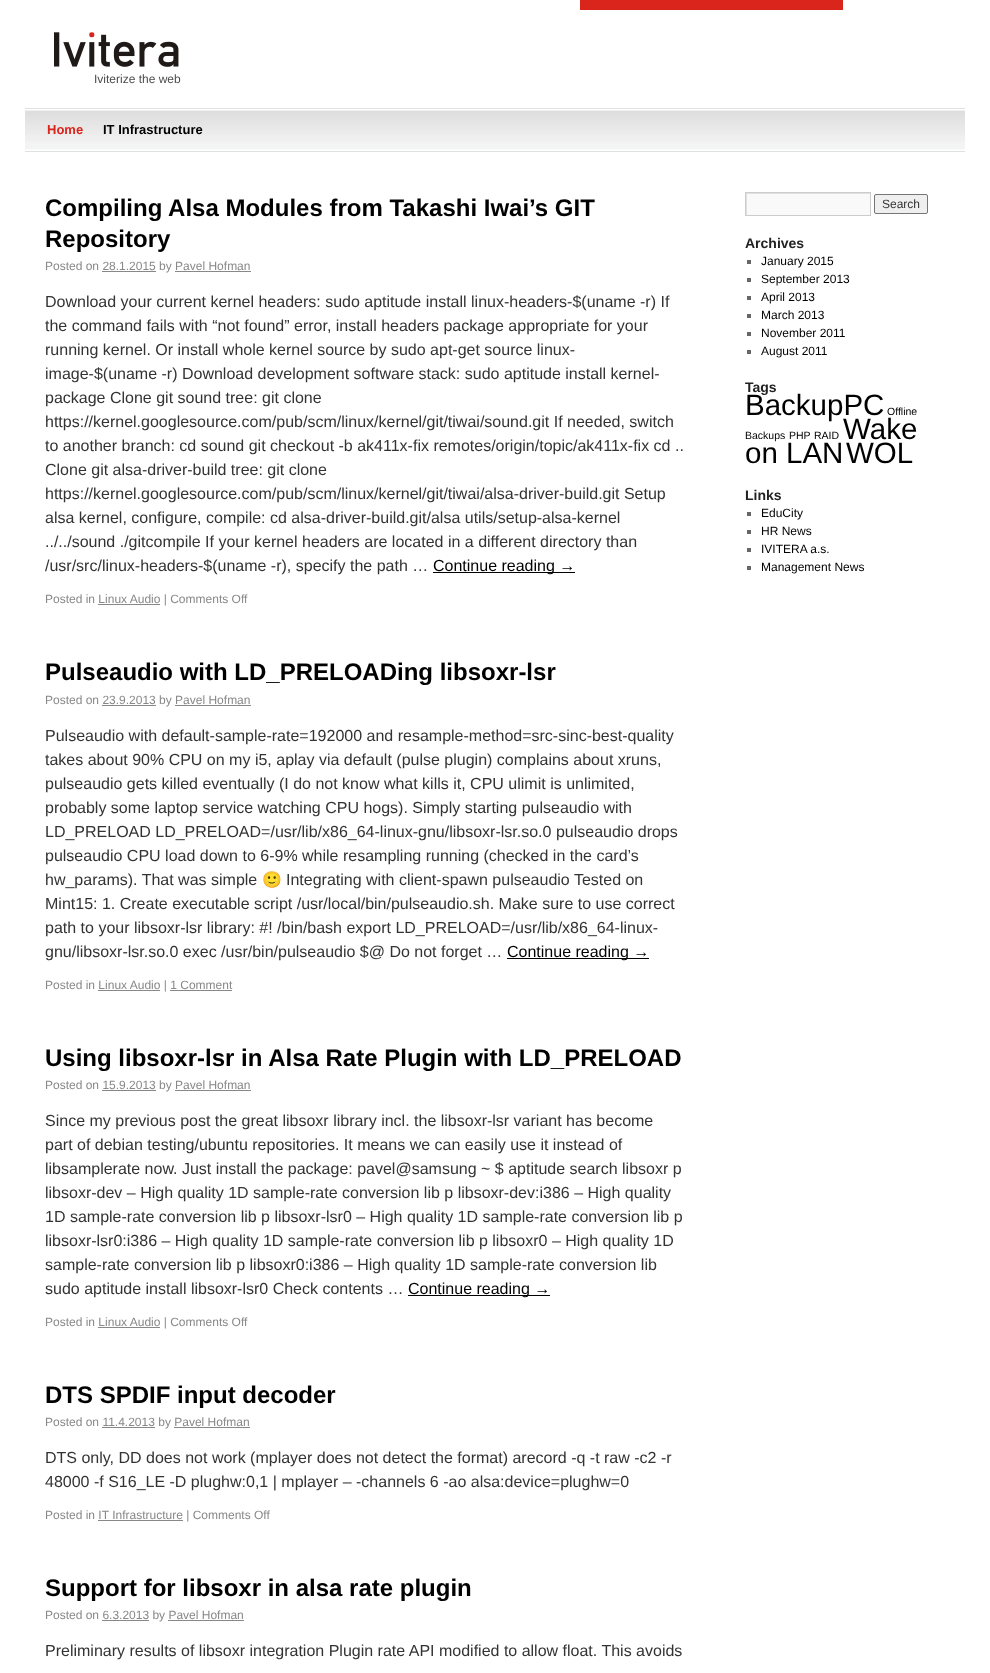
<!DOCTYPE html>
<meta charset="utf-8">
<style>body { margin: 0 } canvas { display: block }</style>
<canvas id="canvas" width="990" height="1673"></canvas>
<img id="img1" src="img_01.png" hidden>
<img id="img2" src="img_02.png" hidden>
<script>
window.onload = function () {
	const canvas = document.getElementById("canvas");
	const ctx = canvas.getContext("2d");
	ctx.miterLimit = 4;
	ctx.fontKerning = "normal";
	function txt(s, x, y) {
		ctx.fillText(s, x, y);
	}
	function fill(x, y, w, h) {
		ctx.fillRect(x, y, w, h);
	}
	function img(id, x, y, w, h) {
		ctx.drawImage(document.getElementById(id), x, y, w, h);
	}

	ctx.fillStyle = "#FFFFFF";
	fill(0, 0, 990, 1673);
	ctx.fillStyle = "#DA251D";
	fill(580, 0, 263, 10);
	img("img1", 54, 32, 125, 35);
	ctx.fillStyle = "#E0E0E0";
	fill(25, 108, 940, 1);
	fill(25, 151, 940, 1);
	img("img2", 25, 110, 940, 40);
	ctx.fillStyle = "#888888";
	fill(102, 271, 54, 1);
	fill(175, 271, 76, 1);
	ctx.fillStyle = "#000000";
	fill(433, 572, 142, 1);
	ctx.fillStyle = "#888888";
	fill(98, 604, 62, 1);
	fill(102, 705, 54, 1);
	fill(175, 705, 76, 1);
	ctx.fillStyle = "#000000";
	fill(507, 958, 142, 1);
	ctx.fillStyle = "#888888";
	fill(98, 990, 62, 1);
	fill(170, 990, 62, 1);
	fill(102, 1090, 54, 1);
	fill(175, 1090, 76, 1);
	ctx.fillStyle = "#000000";
	fill(408, 1295, 142, 1);
	ctx.fillStyle = "#888888";
	fill(98, 1327, 62, 1);
	fill(102, 1427, 53, 1);
	fill(174, 1427, 76, 1);
	fill(98, 1520, 85, 1);
	fill(102, 1620, 47, 1);
	fill(168, 1620, 76, 1);
	ctx.fillStyle = "#F9F9F9";
	fill(747, 194, 123, 21);
	ctx.save();
	ctx.beginPath();
	ctx.rect(746, 193, 124, 22);
	ctx.clip();
	ctx.fillStyle = "#E0E0E0";
	ctx.beginPath();
	ctx.moveTo(647, 94);
	ctx.lineTo(969, 94);
	ctx.lineTo(969, 314);
	ctx.lineTo(647, 314);
	ctx.closePath();
	ctx.moveTo(747, 194);
	ctx.lineTo(871, 194);
	ctx.lineTo(871, 216);
	ctx.lineTo(747, 216);
	ctx.closePath();
	ctx.fill("evenodd");
	ctx.restore();
	ctx.strokeStyle = "#CCCCCC";
	ctx.strokeRect(745.5, 192.5, 125, 23);
	ctx.fillStyle = "#EFEFEF";
	ctx.beginPath();
	ctx.roundRect(874.5, 194.5, 53, 19, 1.5);
	ctx.fill();
	ctx.strokeStyle = "#767676";
	ctx.stroke();
	ctx.fillStyle = "#666666";
	fill(747, 260, 4, 4);
	fill(747, 278, 4, 4);
	fill(747, 296, 4, 4);
	fill(747, 314, 4, 4);
	fill(747, 332, 4, 4);
	fill(747, 350, 4, 4);
	fill(747, 512, 4, 4);
	fill(747, 530, 4, 4);
	fill(747, 548, 4, 4);
	fill(747, 566, 4, 4);
	ctx.font = "12px Liberation Sans";
	ctx.fillStyle = "#4D4D4D";
	txt("Iviterize the web", 94, 83);
	ctx.font = "bold 13px Liberation Sans";
	ctx.fillStyle = "#DA251D";
	txt("Home", 47, 134);
	ctx.fillStyle = "#000000";
	txt("IT Infrastructure", 103, 134);
	ctx.font = "bold 24px Liberation Sans";
	txt("Compiling Alsa Modules from Takashi Iwai’s GIT", 45, 216);
	txt("Repository", 45, 247);
	ctx.font = "12px Liberation Sans";
	ctx.fillStyle = "#888888";
	txt("Posted on 28.1.2015 by Pavel Hofman", 45, 270);
	ctx.font = "16px Liberation Sans";
	ctx.fillStyle = "#333333";
	txt("Download your current kernel headers: sudo aptitude install linux-headers-$(uname -r) If", 45, 307);
	txt("the command fails with “not found” error, install headers package appropriate for your", 45, 331);
	txt("running kernel. Or install whole kernel source by sudo apt-get source linux-", 45, 355);
	txt("image-$(uname -r) Download development software stack: sudo aptitude install kernel-", 45, 379);
	txt("package Clone git sound tree: git clone", 45, 403);
	txt("https://kernel.googlesource.com/pub/scm/linux/kernel/git/tiwai/sound.git If needed, switch", 45, 427);
	txt("to another branch: cd sound git checkout -b ak411x-fix remotes/origin/topic/ak411x-fix cd ..", 45, 451);
	txt("Clone git alsa-driver-build tree: git clone", 45, 475);
	txt("https://kernel.googlesource.com/pub/scm/linux/kernel/git/tiwai/alsa-driver-build.git Setup", 45, 499);
	txt("alsa kernel, configure, compile: cd alsa-driver-build.git/alsa utils/setup-alsa-kernel", 45, 523);
	txt("../../sound ./gitcompile If your kernel headers are located in a different directory than", 45, 547);
	txt("/usr/src/linux-headers-$(uname -r), specify the path …", 45, 571);
	ctx.fillStyle = "#000000";
	txt("Continue reading →", 433, 571);
	ctx.font = "12px Liberation Sans";
	ctx.fillStyle = "#888888";
	txt("Posted in Linux Audio | Comments Off", 45, 603);
	ctx.font = "bold 24px Liberation Sans";
	ctx.fillStyle = "#000000";
	txt("Pulseaudio with LD_PRELOADing libsoxr-lsr", 45, 680);
	ctx.font = "12px Liberation Sans";
	ctx.fillStyle = "#888888";
	txt("Posted on 23.9.2013 by Pavel Hofman", 45, 704);
	ctx.font = "16px Liberation Sans";
	ctx.fillStyle = "#333333";
	txt("Pulseaudio with default-sample-rate=192000 and resample-method=src-sinc-best-quality", 45, 741);
	txt("takes about 90% CPU on my i5, aplay via default (pulse plugin) complains about xruns,", 45, 765);
	txt("pulseaudio gets killed eventually (I do not know what kills it, CPU ulimit is unlimited,", 45, 789);
	txt("probably some laptop service watching CPU hogs). Simply starting pulseaudio with", 45, 813);
	txt("LD_PRELOAD LD_PRELOAD=/usr/lib/x86_64-linux-gnu/libsoxr-lsr.so.0 pulseaudio drops", 45, 837);
	txt("pulseaudio CPU load down to 6-9% while resampling running (checked in the card’s", 45, 861);
	txt("hw_params). That was simple", 45, 885);
	ctx.font = "16px Noto Color Emoji";
	txt("🙂", 262, 885);
	ctx.font = "16px Liberation Sans";
	txt("Integrating with client-spawn pulseaudio Tested on", 286, 885);
	txt("Mint15: 1. Create executable script /usr/local/bin/pulseaudio.sh. Make sure to use correct", 45, 909);
	txt("path to your libsoxr-lsr library: #! /bin/bash export LD_PRELOAD=/usr/lib/x86_64-linux-", 45, 933);
	txt("gnu/libsoxr-lsr.so.0 exec /usr/bin/pulseaudio $@ Do not forget …", 45, 957);
	ctx.fillStyle = "#000000";
	txt("Continue reading →", 507, 957);
	ctx.font = "12px Liberation Sans";
	ctx.fillStyle = "#888888";
	txt("Posted in Linux Audio | 1 Comment", 45, 989);
	ctx.font = "bold 24px Liberation Sans";
	ctx.fillStyle = "#000000";
	txt("Using libsoxr-lsr in Alsa Rate Plugin with LD_PRELOAD", 45, 1066);
	ctx.font = "12px Liberation Sans";
	ctx.fillStyle = "#888888";
	txt("Posted on 15.9.2013 by Pavel Hofman", 45, 1089);
	ctx.font = "16px Liberation Sans";
	ctx.fillStyle = "#333333";
	txt("Since my previous post the great libsoxr library incl. the libsoxr-lsr variant has become", 45, 1126);
	txt("part of debian testing/ubuntu repositories. It means we can easily use it instead of", 45, 1150);
	txt("libsamplerate now. Just install the package: pavel@samsung ~ $ aptitude search libsoxr p", 45, 1174);
	txt("libsoxr-dev – High quality 1D sample-rate conversion lib p libsoxr-dev:i386 – High quality", 45, 1198);
	txt("1D sample-rate conversion lib p libsoxr-lsr0 – High quality 1D sample-rate conversion lib p", 45, 1222);
	txt("libsoxr-lsr0:i386 – High quality 1D sample-rate conversion lib p libsoxr0 – High quality 1D", 45, 1246);
	txt("sample-rate conversion lib p libsoxr0:i386 – High quality 1D sample-rate conversion lib", 45, 1270);
	txt("sudo aptitude install libsoxr-lsr0 Check contents …", 45, 1294);
	ctx.fillStyle = "#000000";
	txt("Continue reading →", 408, 1294);
	ctx.font = "12px Liberation Sans";
	ctx.fillStyle = "#888888";
	txt("Posted in Linux Audio | Comments Off", 45, 1326);
	ctx.font = "bold 24px Liberation Sans";
	ctx.fillStyle = "#000000";
	txt("DTS SPDIF input decoder", 45, 1403);
	ctx.font = "12px Liberation Sans";
	ctx.fillStyle = "#888888";
	txt("Posted on 11.4.2013 by Pavel Hofman", 45, 1426);
	ctx.font = "16px Liberation Sans";
	ctx.fillStyle = "#333333";
	txt("DTS only, DD does not work (mplayer does not detect the format) arecord -q -t raw -c2 -r", 45, 1463);
	txt("48000 -f S16_LE -D plughw:0,1 | mplayer – -channels 6 -ao alsa:device=plughw=0", 45, 1487);
	ctx.font = "12px Liberation Sans";
	ctx.fillStyle = "#888888";
	txt("Posted in IT Infrastructure | Comments Off", 45, 1519);
	ctx.font = "bold 24px Liberation Sans";
	ctx.fillStyle = "#000000";
	txt("Support for libsoxr in alsa rate plugin", 45, 1596);
	ctx.font = "12px Liberation Sans";
	ctx.fillStyle = "#888888";
	txt("Posted on 6.3.2013 by Pavel Hofman", 45, 1619);
	ctx.font = "16px Liberation Sans";
	ctx.fillStyle = "#333333";
	txt("Preliminary results of libsoxr integration Plugin rate API modified to allow float. This avoids", 45, 1656);
	ctx.font = "12px Liberation Sans";
	txt("Search", 882, 208);
	ctx.font = "bold 14px Liberation Sans";
	ctx.fillStyle = "#222222";
	txt("Archives", 745, 248);
	ctx.font = "12px Liberation Sans";
	ctx.fillStyle = "#000000";
	txt("January 2015", 761, 265);
	txt("September 2013", 761, 283);
	txt("April 2013", 761, 301);
	txt("March 2013", 761, 319);
	txt("November 2011", 761, 337);
	txt("August 2011", 761, 355);
	ctx.font = "bold 14px Liberation Sans";
	ctx.fillStyle = "#222222";
	txt("Tags", 745, 392);
	ctx.font = "29.5px Liberation Sans";
	ctx.fillStyle = "#000000";
	txt("BackupPC", 745, 415);
	ctx.font = "10.5px Liberation Sans";
	txt("Offline", 887, 415);
	txt("Backups", 745, 439);
	txt("PHP", 789, 439);
	txt("RAID", 814, 439);
	ctx.font = "29.5px Liberation Sans";
	txt("Wake", 843, 439);
	txt("on LAN", 745, 463);
	txt("WOL", 846, 463);
	ctx.font = "bold 14px Liberation Sans";
	ctx.fillStyle = "#222222";
	txt("Links", 745, 500);
	ctx.font = "12px Liberation Sans";
	ctx.fillStyle = "#000000";
	txt("EduCity", 761, 517);
	txt("HR News", 761, 535);
	txt("IVITERA a.s.", 761, 553);
	txt("Management News", 761, 571);
};
</script>
